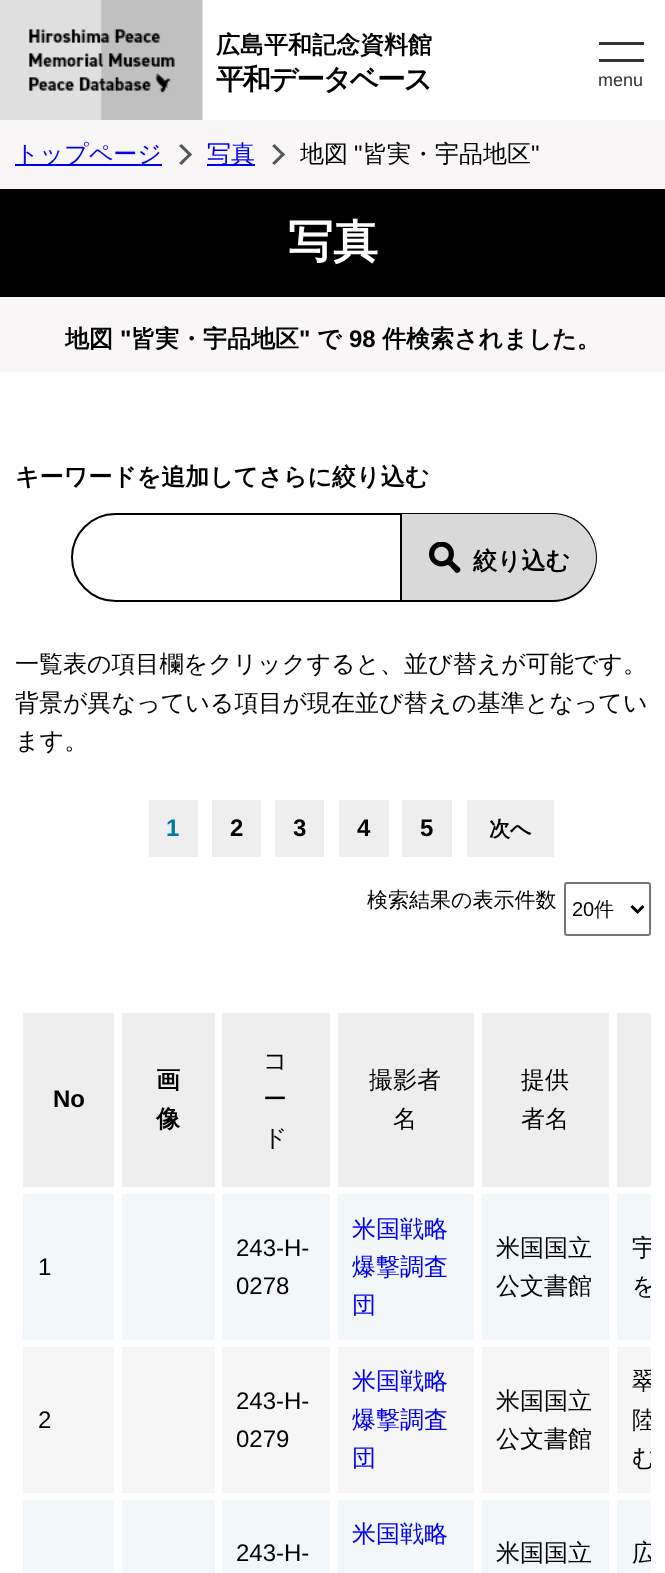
<!DOCTYPE html>
<meta charset="utf-8">
<style>body { margin: 0 } canvas { display: block }</style>
<canvas id="canvas" width="665" height="1573"></canvas>
<img id="img1" src="img_01.png" hidden>
<img id="img2" src="img_02.png" hidden>
<script>
window.onload = function () {
	const canvas = document.getElementById("canvas");
	const ctx = canvas.getContext("2d");
	ctx.miterLimit = 4;
	ctx.fontKerning = "normal";
	function txt(s, x, y) {
		ctx.fillText(s, x, y);
	}
	function fill(x, y, w, h) {
		ctx.fillRect(x, y, w, h);
	}
	function img(id, x, y, w, h) {
		ctx.drawImage(document.getElementById(id), x, y, w, h);
	}

	ctx.fillStyle = "#FFFFFF";
	fill(0, 0, 665, 1573);
	img("img1", 0, 0, 203, 120);
	ctx.fillStyle = "#333333";
	fill(599, 42, 45, 3);
	fill(599, 59, 45, 3);
	ctx.fillStyle = "#F8F6F6";
	fill(0, 120, 665, 69);
	ctx.fillStyle = "#0000EE";
	fill(15, 164, 147, 2);
	ctx.fillStyle = "#555555";
	ctx.beginPath();
	ctx.moveTo(179, 146);
	ctx.lineTo(181.5, 144);
	ctx.lineTo(192, 154.5);
	ctx.lineTo(190, 156.5);
	ctx.closePath();
	ctx.fill();
	ctx.beginPath();
	ctx.moveTo(179, 163);
	ctx.lineTo(190, 152.5);
	ctx.lineTo(192, 154.5);
	ctx.lineTo(181.5, 165);
	ctx.closePath();
	ctx.fill();
	ctx.fillStyle = "#0000EE";
	fill(207, 164, 48, 2);
	ctx.fillStyle = "#555555";
	ctx.beginPath();
	ctx.moveTo(272, 146);
	ctx.lineTo(274.5, 144);
	ctx.lineTo(285, 154.5);
	ctx.lineTo(283, 156.5);
	ctx.closePath();
	ctx.fill();
	ctx.beginPath();
	ctx.moveTo(272, 163);
	ctx.lineTo(283, 152.5);
	ctx.lineTo(285, 154.5);
	ctx.lineTo(274.5, 165);
	ctx.closePath();
	ctx.fill();
	ctx.fillStyle = "#000000";
	fill(0, 189, 665, 108);
	ctx.fillStyle = "#F8F6F6";
	fill(0, 297, 665, 75);
	ctx.beginPath();
	ctx.roundRect(72, 514, 329, 87, [43.5, 0, 0, 43.5]);
	ctx.strokeStyle = "#000000";
	ctx.lineWidth = 2;
	ctx.stroke();
	ctx.fillStyle = "#D9D9D9";
	ctx.beginPath();
	ctx.roundRect(402, 513, 195, 89, [0, 44.5, 44.5, 0]);
	ctx.fill();
	img("img2", 429, 542, 32, 31);
	ctx.fillStyle = "#000000";
	ctx.beginPath();
	ctx.moveTo(402, 513);
	ctx.lineTo(553, 513);
	ctx.bezierCurveTo(577, 513, 597, 533, 597, 557);
	ctx.bezierCurveTo(597, 582, 577, 602, 553, 602);
	ctx.lineTo(402, 602);
	ctx.closePath();
	ctx.moveTo(402, 514);
	ctx.lineTo(553, 514);
	ctx.bezierCurveTo(576, 514, 596, 534, 596, 557);
	ctx.bezierCurveTo(596, 581, 576, 600, 553, 600);
	ctx.lineTo(402, 600);
	ctx.closePath();
	ctx.fill("evenodd");
	ctx.fillStyle = "#EEEEEE";
	fill(149, 800, 49, 57);
	fill(212, 800, 49, 57);
	fill(275, 800, 49, 57);
	fill(339, 800, 50, 57);
	fill(402, 800, 50, 57);
	fill(467, 800, 87, 57);
	ctx.beginPath();
	ctx.roundRect(565, 883, 85, 52, 2);
	ctx.strokeStyle = "#767676";
	ctx.stroke();
	ctx.beginPath();
	ctx.moveTo(631.5, 906);
	ctx.lineTo(637.5, 912);
	ctx.lineTo(643.5, 906);
	ctx.strokeStyle = "#000000";
	ctx.lineWidth = 3;
	ctx.stroke();
	fill(23, 1013, 91, 174);
	fill(122, 1013, 93, 174);
	fill(222, 1013, 108, 174);
	fill(338, 1013, 136, 174);
	fill(482, 1013, 127, 174);
	fill(617, 1013, 34, 174);
	ctx.fillStyle = "#F2F7F9";
	fill(23, 1194, 91, 146);
	fill(122, 1194, 93, 146);
	fill(222, 1194, 108, 146);
	fill(338, 1194, 136, 146);
	fill(482, 1194, 127, 146);
	fill(617, 1194, 34, 146);
	ctx.fillStyle = "#F6F6F6";
	fill(23, 1347, 91, 146);
	fill(122, 1347, 93, 146);
	fill(222, 1347, 108, 146);
	fill(338, 1347, 136, 146);
	fill(482, 1347, 127, 146);
	fill(617, 1347, 34, 146);
	ctx.fillStyle = "#F2F7F9";
	fill(23, 1500, 91, 73);
	fill(122, 1500, 93, 73);
	fill(338, 1500, 136, 73);
	fill(222, 1500, 108, 73);
	fill(482, 1500, 127, 73);
	fill(617, 1500, 34, 73);
	ctx.font = "bold 24px WenQuanYi Zen Hei";
	ctx.fillStyle = "#000000";
	txt("広島平和記念資料館", 216, 53);
	ctx.letterSpacing = "-2px";
	ctx.font = "bold 28.5px WenQuanYi Zen Hei";
	txt("平和データベース", 216, 89);
	ctx.letterSpacing = "0px";
	ctx.font = "18px Liberation Sans";
	ctx.fillStyle = "#333333";
	txt("menu", 598, 86);
	ctx.font = "500 24px WenQuanYi Zen Hei";
	ctx.fillStyle = "#0000EE";
	txt("トップページ", 15, 162);
	txt("写真", 207, 162);
	ctx.fillStyle = "#000000";
	txt("地図", 300, 162);
	ctx.font = "24px Liberation Sans";
	txt("\"", 354, 162);
	ctx.font = "500 24px WenQuanYi Zen Hei";
	txt("皆実・宇品地区", 363, 162);
	ctx.font = "24px Liberation Sans";
	txt("\"", 531, 162);
	ctx.font = "bold 45px WenQuanYi Zen Hei";
	ctx.fillStyle = "#FFFFFF";
	txt("写真", 288, 257);
	ctx.font = "bold 24px WenQuanYi Zen Hei";
	ctx.fillStyle = "#000000";
	txt("地図", 65, 347);
	ctx.font = "bold 24px Liberation Sans";
	txt("\"", 120, 347);
	ctx.font = "bold 24px WenQuanYi Zen Hei";
	txt("皆実・宇品地区", 131, 347);
	ctx.font = "bold 24px Liberation Sans";
	txt("\"", 299, 347);
	ctx.font = "bold 24px WenQuanYi Zen Hei";
	txt("で", 317, 347);
	ctx.font = "bold 24px Liberation Sans";
	txt("98", 349, 347);
	ctx.font = "bold 24px WenQuanYi Zen Hei";
	txt("件検索されました。", 382, 347);
	txt("キーワードを追加してさらに絞り込む", 15, 485);
	txt("絞り込む", 473, 569);
	ctx.font = "500 24px WenQuanYi Zen Hei";
	txt("一覧表の項目欄をクリックすると、並び替えが可能です。", 15, 672);
	txt("背景が異なっている項目が現在並び替えの基準となってい", 15, 711);
	txt("ます。", 15, 749);
	ctx.font = "bold 24px Liberation Sans";
	ctx.fillStyle = "#0079A5";
	txt("1", 166, 836);
	ctx.fillStyle = "#000000";
	txt("2", 230, 836);
	txt("3", 293, 836);
	txt("4", 357, 836);
	txt("5", 420, 836);
	ctx.font = "bold 21px WenQuanYi Zen Hei";
	txt("次へ", 489, 836);
	ctx.font = "500 21px WenQuanYi Zen Hei";
	txt("検索結果の表示件数", 367, 907);
	ctx.font = "20px Liberation Sans";
	txt("20", 572, 916);
	ctx.font = "500 20px WenQuanYi Zen Hei";
	txt("件", 594, 916);
	ctx.font = "bold 24px Liberation Sans";
	txt("No", 53, 1107);
	ctx.font = "bold 24px WenQuanYi Zen Hei";
	txt("画", 156, 1088);
	txt("像", 156, 1127);
	ctx.font = "500 24px WenQuanYi Zen Hei";
	txt("コ", 263, 1069);
	txt("ー", 263, 1107);
	txt("ド", 263, 1146);
	txt("撮影者", 369, 1088);
	txt("名", 393, 1127);
	txt("提供", 521, 1088);
	txt("者名", 521, 1127);
	ctx.font = "24px Liberation Sans";
	txt("1", 38, 1275);
	txt("243-H-", 236, 1256);
	txt("0278", 236, 1294);
	ctx.font = "500 24px WenQuanYi Zen Hei";
	ctx.fillStyle = "#0000EE";
	txt("米国戦略", 352, 1237);
	txt("爆撃調査", 352, 1275);
	txt("団", 352, 1313);
	ctx.fillStyle = "#000000";
	txt("米国国立", 496, 1256);
	txt("公文書館", 496, 1294);
	ctx.save();
	ctx.beginPath();
	ctx.rect(15, 951, 636, 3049);
	ctx.clip();
	txt("宇", 632, 1256);
	txt("を", 632, 1294);
	ctx.restore();
	ctx.font = "24px Liberation Sans";
	txt("2", 38, 1428);
	txt("243-H-", 236, 1409);
	txt("0279", 236, 1447);
	ctx.font = "500 24px WenQuanYi Zen Hei";
	ctx.fillStyle = "#0000EE";
	txt("米国戦略", 352, 1389);
	txt("爆撃調査", 352, 1428);
	txt("団", 352, 1466);
	ctx.fillStyle = "#000000";
	txt("米国国立", 496, 1409);
	txt("公文書館", 496, 1447);
	ctx.save();
	ctx.beginPath();
	ctx.rect(15, 951, 636, 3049);
	ctx.clip();
	txt("翠", 632, 1389);
	txt("陸", 632, 1428);
	txt("む", 632, 1466);
	ctx.restore();
	ctx.fillStyle = "#0000EE";
	txt("米国戦略", 352, 1542);
	ctx.font = "24px Liberation Sans";
	ctx.fillStyle = "#000000";
	txt("243-H-", 236, 1561);
	ctx.font = "500 24px WenQuanYi Zen Hei";
	txt("米国国立", 496, 1561);
	ctx.save();
	ctx.beginPath();
	ctx.rect(15, 951, 636, 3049);
	ctx.clip();
	txt("広", 632, 1561);
	ctx.restore();
};
</script>
